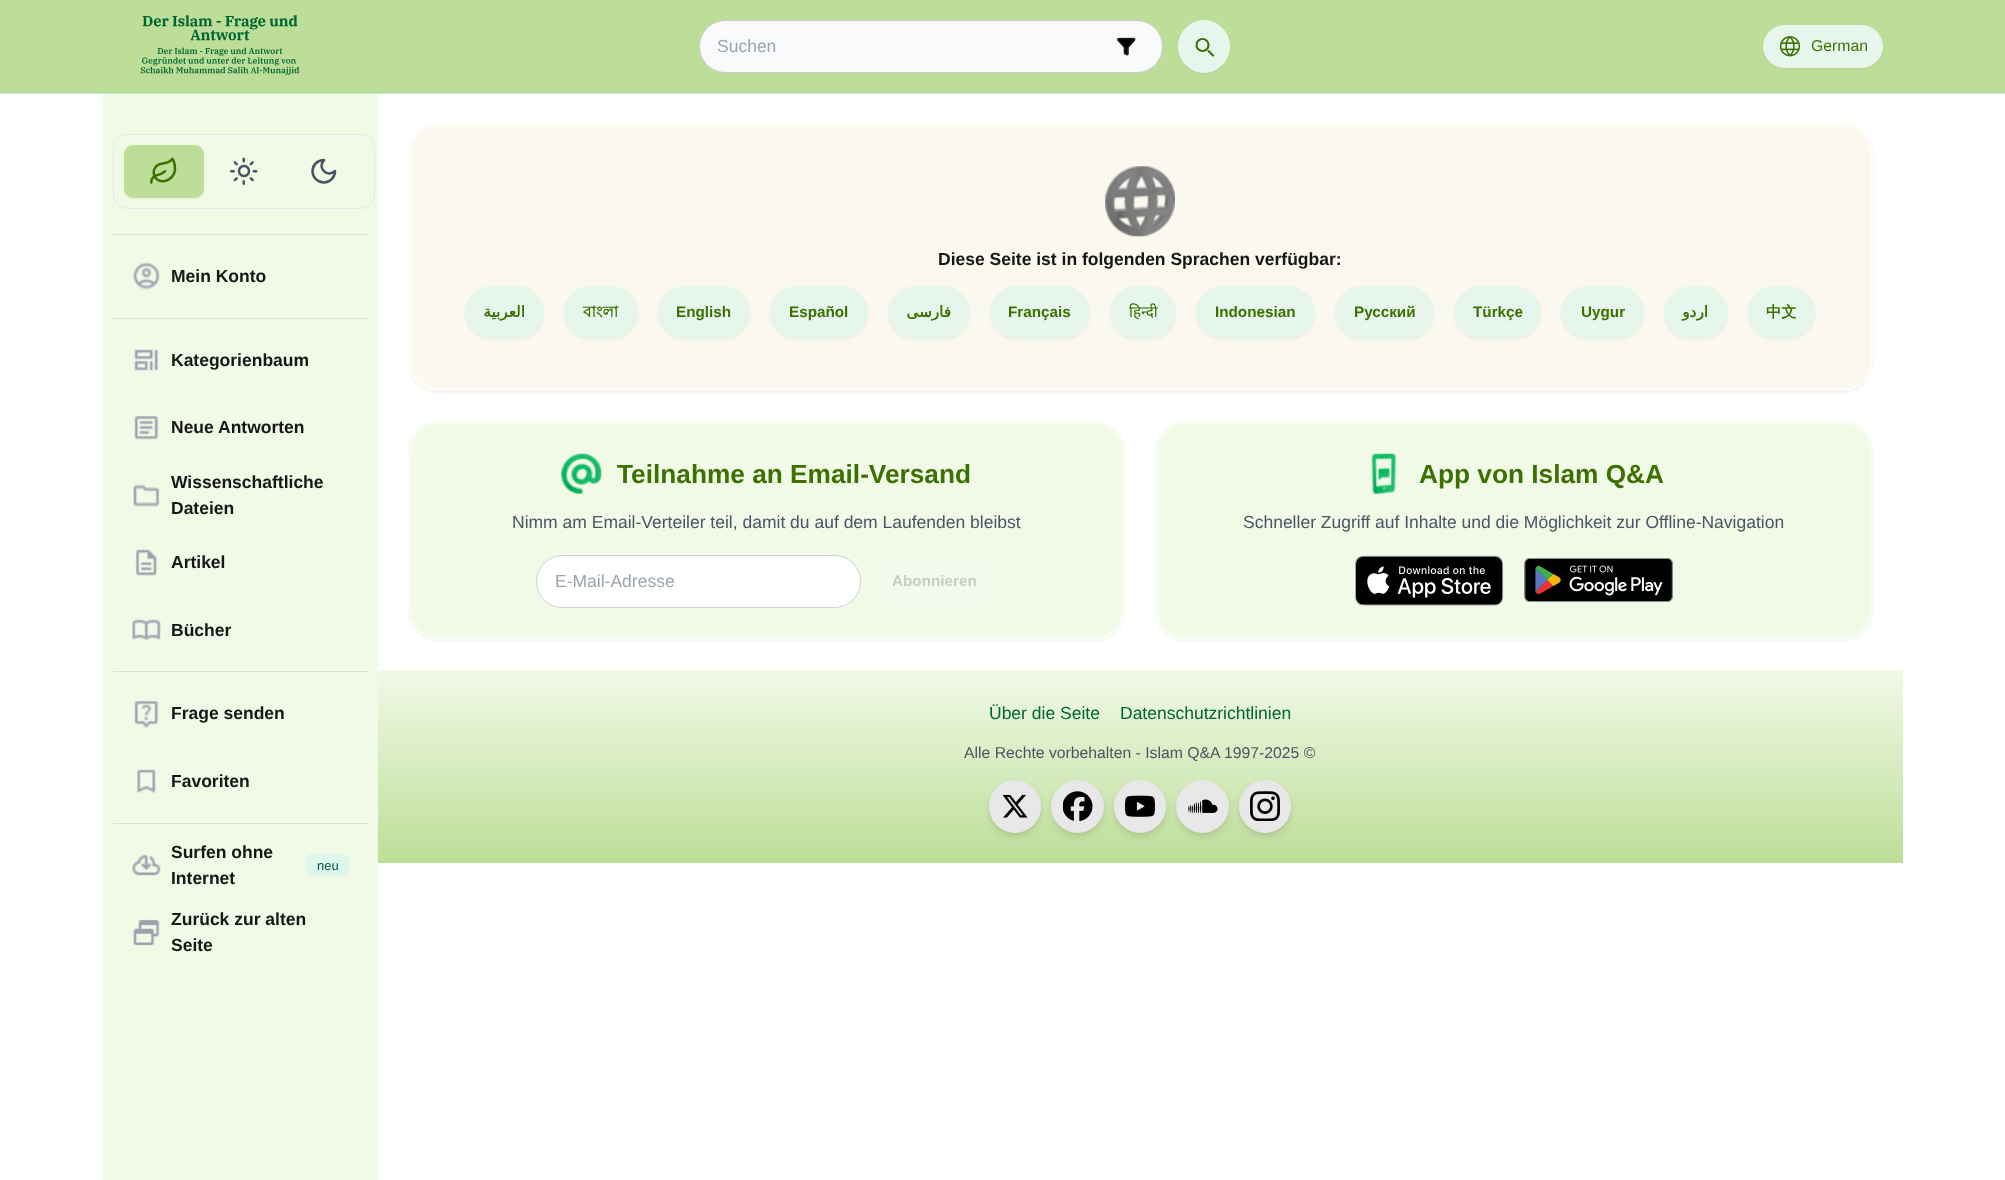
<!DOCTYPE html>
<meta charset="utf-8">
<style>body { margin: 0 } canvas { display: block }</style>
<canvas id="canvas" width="2005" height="1180"></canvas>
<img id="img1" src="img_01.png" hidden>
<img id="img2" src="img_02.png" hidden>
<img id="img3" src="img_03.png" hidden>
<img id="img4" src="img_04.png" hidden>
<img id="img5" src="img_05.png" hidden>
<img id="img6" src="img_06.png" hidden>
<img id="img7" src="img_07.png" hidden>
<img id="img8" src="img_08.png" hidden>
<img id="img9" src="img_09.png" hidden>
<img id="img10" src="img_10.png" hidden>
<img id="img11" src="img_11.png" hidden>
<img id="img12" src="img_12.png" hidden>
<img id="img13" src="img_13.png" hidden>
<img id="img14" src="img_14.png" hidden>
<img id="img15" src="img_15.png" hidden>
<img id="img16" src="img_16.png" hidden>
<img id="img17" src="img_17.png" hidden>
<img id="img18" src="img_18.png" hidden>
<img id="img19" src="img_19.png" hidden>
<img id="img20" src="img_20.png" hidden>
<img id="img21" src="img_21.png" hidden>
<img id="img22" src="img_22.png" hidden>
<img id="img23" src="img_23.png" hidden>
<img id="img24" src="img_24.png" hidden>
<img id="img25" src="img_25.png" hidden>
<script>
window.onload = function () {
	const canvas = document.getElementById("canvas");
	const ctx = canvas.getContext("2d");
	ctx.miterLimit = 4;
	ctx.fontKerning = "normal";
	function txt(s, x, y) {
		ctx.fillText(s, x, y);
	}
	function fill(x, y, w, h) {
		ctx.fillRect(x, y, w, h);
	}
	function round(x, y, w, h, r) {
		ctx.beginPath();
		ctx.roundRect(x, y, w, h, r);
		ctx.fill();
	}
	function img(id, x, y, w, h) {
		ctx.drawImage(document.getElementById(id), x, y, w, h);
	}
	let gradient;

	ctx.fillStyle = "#FFFFFF";
	fill(0, 0, 2005, 1180);
	ctx.fillStyle = "#BDDE98";
	fill(0, 0, 2005, 93);
	ctx.fillStyle = "#C4EAD1";
	fill(0, 93, 2005, 1);
	img("img1", 140, 15, 160, 60);
	ctx.fillStyle = "#F9FAFB";
	round(699, 20, 464, 53, 26.5);
	ctx.beginPath();
	ctx.roundRect(699.5, 20.5, 463, 52, 26);
	ctx.strokeStyle = "rgba(22, 22, 22, 0.2)";
	ctx.stroke();
	img("img2", 1117, 37, 19, 19);
	ctx.fillStyle = "rgba(0, 0, 0, 0.05)";
	ctx.filter = "blur(1px)";
	ctx.beginPath();
	ctx.roundRect(1178, 21, 52, 53, 26);
	ctx.fill();
	ctx.filter = "none";
	ctx.fillStyle = "#E7F6EC";
	ctx.beginPath();
	ctx.roundRect(1178.5, 20.5, 51, 52, 25.5);
	ctx.fill();
	ctx.strokeStyle = "#E7F6EC";
	ctx.stroke();
	ctx.beginPath();
	ctx.moveTo(1213, 55.5);
	ctx.lineTo(1208.5, 51);
	ctx.strokeStyle = "#3C7101";
	ctx.lineWidth = 2.1;
	ctx.lineCap = "round";
	ctx.lineJoin = "round";
	ctx.stroke();
	ctx.beginPath();
	ctx.arc(1202.5, 45, 6, 0, Math.PI * 2);
	ctx.stroke();
	ctx.fillStyle = "rgba(0, 0, 0, 0.05)";
	ctx.filter = "blur(1px)";
	ctx.beginPath();
	ctx.roundRect(1763, 26, 120, 43, 21.5);
	ctx.fill();
	ctx.filter = "none";
	ctx.fillStyle = "#E7F6EC";
	ctx.beginPath();
	ctx.roundRect(1763.5, 25.5, 119, 42, 21);
	ctx.fill();
	ctx.strokeStyle = "#E7F6EC";
	ctx.lineWidth = 1;
	ctx.lineJoin = "miter";
	ctx.stroke();
	img("img3", 1779, 36, 22, 21);
	ctx.fillStyle = "#F1F9E7";
	fill(103, 94, 275, 1086);
	ctx.beginPath();
	ctx.roundRect(113.5, 134.5, 261, 74, 13.5);
	ctx.strokeStyle = "#E5E7EB";
	ctx.stroke();
	ctx.fillStyle = "rgba(0, 0, 0, 0.05)";
	ctx.filter = "blur(1px)";
	ctx.beginPath();
	ctx.roundRect(124, 146, 80, 53, 9);
	ctx.fill();
	ctx.filter = "none";
	ctx.fillStyle = "#BDDE98";
	round(124, 145, 80, 53, 9);
	img("img4", 150, 157, 27, 27);
	img("img5", 230, 157, 28, 28);
	ctx.beginPath();
	ctx.moveTo(324, 160);
	ctx.bezierCurveTo(316.5, 167.5, 327.5, 178.5, 335, 171);
	ctx.bezierCurveTo(335, 177.5, 330, 182.5, 324, 182.5);
	ctx.bezierCurveTo(317.5, 182.5, 312.5, 177.5, 312.5, 171);
	ctx.bezierCurveTo(312.5, 165, 317.5, 160, 324, 160);
	ctx.closePath();
	ctx.strokeStyle = "#4B5563";
	ctx.lineWidth = 2.5;
	ctx.lineJoin = "round";
	ctx.stroke();
	ctx.fillStyle = "#DBE2D2";
	fill(113, 234, 255, 1);
	img("img6", 133, 262, 27, 28);
	fill(113, 318, 255, 1);
	img("img7", 134, 349, 25, 22);
	img("img8", 134, 415, 25, 25);
	img("img9", 133, 484, 27, 23);
	img("img10", 135, 549, 22, 27);
	img("img11", 132, 619, 29, 22);
	fill(113, 671, 255, 1);
	img("img12", 134, 700, 25, 28);
	img("img13", 137, 769, 19, 24);
	fill(113, 823, 255, 1);
	img("img14", 132, 854, 29, 22);
	ctx.fillStyle = "#DEF7EC";
	round(306, 854, 43, 22, 5);
	img("img15", 133, 919, 27, 27);
	ctx.fillStyle = "rgba(0, 0, 0, 0.05)";
	ctx.filter = "blur(1px)";
	ctx.beginPath();
	ctx.roundRect(408, 125, 1465, 268, 30);
	ctx.fill();
	ctx.filter = "none";
	ctx.fillStyle = "#FBF8EF";
	round(408, 124, 1465, 267, 30);
	ctx.beginPath();
	ctx.roundRect(409.5, 125.5, 1462, 264, 28.5);
	ctx.strokeStyle = "rgba(255, 255, 255, 0.5)";
	ctx.lineWidth = 3;
	ctx.lineJoin = "miter";
	ctx.stroke();
	img("img16", 1105, 166, 70, 71);
	ctx.fillStyle = "rgba(0, 0, 0, 0.05)";
	ctx.filter = "blur(1px)";
	ctx.beginPath();
	ctx.roundRect(465, 288, 79, 52, 26);
	ctx.fill();
	ctx.filter = "none";
	ctx.fillStyle = "#E7F6EC";
	ctx.beginPath();
	ctx.roundRect(465.5, 286.5, 78, 52, 26);
	ctx.fill();
	ctx.strokeStyle = "#E7F6EC";
	ctx.lineWidth = 1;
	ctx.stroke();
	ctx.fillStyle = "rgba(0, 0, 0, 0.05)";
	ctx.filter = "blur(1px)";
	ctx.beginPath();
	ctx.roundRect(564, 288, 74, 52, 26);
	ctx.fill();
	ctx.filter = "none";
	ctx.fillStyle = "#E7F6EC";
	ctx.beginPath();
	ctx.roundRect(564.5, 286.5, 73, 52, 26);
	ctx.fill();
	ctx.stroke();
	ctx.fillStyle = "rgba(0, 0, 0, 0.05)";
	ctx.filter = "blur(1px)";
	ctx.beginPath();
	ctx.roundRect(658, 288, 92, 52, 26);
	ctx.fill();
	ctx.filter = "none";
	ctx.fillStyle = "#E7F6EC";
	ctx.beginPath();
	ctx.roundRect(658.5, 286.5, 91, 52, 26);
	ctx.fill();
	ctx.stroke();
	ctx.fillStyle = "rgba(0, 0, 0, 0.05)";
	ctx.filter = "blur(1px)";
	ctx.beginPath();
	ctx.roundRect(770, 288, 98, 52, 26);
	ctx.fill();
	ctx.filter = "none";
	ctx.fillStyle = "#E7F6EC";
	ctx.beginPath();
	ctx.roundRect(770.5, 286.5, 97, 52, 26);
	ctx.fill();
	ctx.stroke();
	ctx.fillStyle = "rgba(0, 0, 0, 0.05)";
	ctx.filter = "blur(1px)";
	ctx.beginPath();
	ctx.roundRect(888, 288, 82, 52, 26);
	ctx.fill();
	ctx.filter = "none";
	ctx.fillStyle = "#E7F6EC";
	ctx.beginPath();
	ctx.roundRect(888.5, 286.5, 81, 52, 26);
	ctx.fill();
	ctx.stroke();
	ctx.fillStyle = "rgba(0, 0, 0, 0.05)";
	ctx.filter = "blur(1px)";
	ctx.beginPath();
	ctx.roundRect(990, 288, 100, 52, 26);
	ctx.fill();
	ctx.filter = "none";
	ctx.fillStyle = "#E7F6EC";
	ctx.beginPath();
	ctx.roundRect(990.5, 286.5, 99, 52, 26);
	ctx.fill();
	ctx.stroke();
	ctx.fillStyle = "rgba(0, 0, 0, 0.05)";
	ctx.filter = "blur(1px)";
	ctx.beginPath();
	ctx.roundRect(1110, 288, 66, 52, 26);
	ctx.fill();
	ctx.filter = "none";
	ctx.fillStyle = "#E7F6EC";
	ctx.beginPath();
	ctx.roundRect(1110.5, 286.5, 65, 52, 26);
	ctx.fill();
	ctx.stroke();
	ctx.fillStyle = "rgba(0, 0, 0, 0.05)";
	ctx.filter = "blur(1px)";
	ctx.beginPath();
	ctx.roundRect(1196, 288, 119, 52, 26);
	ctx.fill();
	ctx.filter = "none";
	ctx.fillStyle = "#E7F6EC";
	ctx.beginPath();
	ctx.roundRect(1196.5, 286.5, 118, 52, 26);
	ctx.fill();
	ctx.stroke();
	ctx.fillStyle = "rgba(0, 0, 0, 0.05)";
	ctx.filter = "blur(1px)";
	ctx.beginPath();
	ctx.roundRect(1335, 288, 99, 52, 26);
	ctx.fill();
	ctx.filter = "none";
	ctx.fillStyle = "#E7F6EC";
	ctx.beginPath();
	ctx.roundRect(1335.5, 286.5, 98, 52, 26);
	ctx.fill();
	ctx.stroke();
	ctx.fillStyle = "rgba(0, 0, 0, 0.05)";
	ctx.filter = "blur(1px)";
	ctx.beginPath();
	ctx.roundRect(1454, 288, 87, 52, 26);
	ctx.fill();
	ctx.filter = "none";
	ctx.fillStyle = "#E7F6EC";
	ctx.beginPath();
	ctx.roundRect(1454.5, 286.5, 86, 52, 26);
	ctx.fill();
	ctx.stroke();
	ctx.fillStyle = "rgba(0, 0, 0, 0.05)";
	ctx.filter = "blur(1px)";
	ctx.beginPath();
	ctx.roundRect(1561, 288, 83, 52, 26);
	ctx.fill();
	ctx.filter = "none";
	ctx.fillStyle = "#E7F6EC";
	ctx.beginPath();
	ctx.roundRect(1561.5, 286.5, 82, 52, 26);
	ctx.fill();
	ctx.stroke();
	ctx.fillStyle = "rgba(0, 0, 0, 0.05)";
	ctx.filter = "blur(1px)";
	ctx.beginPath();
	ctx.roundRect(1664, 288, 64, 52, 26);
	ctx.fill();
	ctx.filter = "none";
	ctx.fillStyle = "#E7F6EC";
	ctx.beginPath();
	ctx.roundRect(1664.5, 286.5, 63, 52, 26);
	ctx.fill();
	ctx.stroke();
	ctx.fillStyle = "rgba(0, 0, 0, 0.05)";
	ctx.filter = "blur(1px)";
	ctx.beginPath();
	ctx.roundRect(1748, 288, 67, 52, 26);
	ctx.fill();
	ctx.filter = "none";
	ctx.fillStyle = "#E7F6EC";
	ctx.beginPath();
	ctx.roundRect(1748.5, 286.5, 66, 52, 26);
	ctx.fill();
	ctx.stroke();
	ctx.fillStyle = "rgba(0, 0, 0, 0.05)";
	ctx.filter = "blur(1px)";
	ctx.beginPath();
	ctx.roundRect(408, 423, 717, 218, 30);
	ctx.fill();
	ctx.filter = "none";
	ctx.fillStyle = "#F1F9E7";
	round(408, 421, 717, 219, 30);
	ctx.beginPath();
	ctx.roundRect(409.5, 422.5, 714, 216, 28.5);
	ctx.strokeStyle = "rgba(255, 255, 255, 0.5)";
	ctx.lineWidth = 3;
	ctx.stroke();
	img("img17", 561, 453, 41, 41);
	ctx.fillStyle = "#FFFFFF";
	round(536, 555, 325, 53, 26.5);
	ctx.beginPath();
	ctx.roundRect(536.5, 555.5, 324, 52, 26);
	ctx.strokeStyle = "rgba(22, 22, 22, 0.2)";
	ctx.lineWidth = 1;
	ctx.stroke();
	ctx.fillStyle = "rgba(255, 255, 255, 0.2)";
	round(874, 555, 122, 53, 26.5);
	ctx.fillStyle = "rgba(0, 0, 0, 0.05)";
	ctx.filter = "blur(1px)";
	ctx.beginPath();
	ctx.roundRect(1155, 423, 718, 218, 30);
	ctx.fill();
	ctx.filter = "none";
	ctx.fillStyle = "#F1F9E7";
	round(1155, 421, 718, 219, 30);
	ctx.beginPath();
	ctx.roundRect(1156.5, 422.5, 715, 216, 28.5);
	ctx.strokeStyle = "rgba(255, 255, 255, 0.5)";
	ctx.lineWidth = 3;
	ctx.stroke();
	img("img18", 1371, 453, 26, 41);
	img("img19", 1355, 555, 149, 51);
	img("img20", 1524, 558, 149, 44);
	gradient = ctx.createLinearGradient(1140, 670, 1140, 863);
	gradient.addColorStop(0, "#F1F9E7");
	gradient.addColorStop(1, "#BDDE98");
	ctx.fillStyle = gradient;
	fill(378, 670, 1525, 193);
	ctx.fillStyle = "rgba(0, 0, 0, 0.1)";
	ctx.filter = "blur(2.5px)";
	ctx.beginPath();
	ctx.roundRect(991, 785, 48, 48, 24);
	ctx.fill();
	ctx.filter = "none";
	ctx.filter = "blur(4px)";
	ctx.beginPath();
	ctx.roundRect(990, 786, 50, 50, 25);
	ctx.fill();
	ctx.filter = "none";
	ctx.fillStyle = "#E8E8E8";
	ctx.beginPath();
	ctx.roundRect(989.5, 780.5, 51, 52, 25.5);
	ctx.fill();
	ctx.strokeStyle = "#E8E8E8";
	ctx.lineWidth = 1;
	ctx.stroke();
	img("img21", 1003, 794, 25, 24);
	ctx.fillStyle = "rgba(0, 0, 0, 0.1)";
	ctx.filter = "blur(2.5px)";
	ctx.beginPath();
	ctx.roundRect(1054, 785, 47, 48, 23.5);
	ctx.fill();
	ctx.filter = "none";
	ctx.filter = "blur(4px)";
	ctx.beginPath();
	ctx.roundRect(1053, 786, 50, 50, 25);
	ctx.fill();
	ctx.filter = "none";
	ctx.fillStyle = "#E8E8E8";
	ctx.beginPath();
	ctx.arc(1077.5, 806.5, 26, 0, Math.PI * 2);
	ctx.fill();
	ctx.stroke();
	img("img22", 1063, 791, 30, 30);
	ctx.fillStyle = "rgba(0, 0, 0, 0.1)";
	ctx.filter = "blur(2.5px)";
	ctx.beginPath();
	ctx.roundRect(1116, 785, 48, 48, 24);
	ctx.fill();
	ctx.filter = "none";
	ctx.filter = "blur(4px)";
	ctx.beginPath();
	ctx.roundRect(1115, 786, 50, 50, 25);
	ctx.fill();
	ctx.filter = "none";
	ctx.fillStyle = "#E8E8E8";
	ctx.beginPath();
	ctx.roundRect(1114.5, 780.5, 51, 52, 25.5);
	ctx.fill();
	ctx.stroke();
	img("img23", 1125, 795, 30, 22);
	ctx.fillStyle = "rgba(0, 0, 0, 0.1)";
	ctx.filter = "blur(2.5px)";
	ctx.beginPath();
	ctx.roundRect(1179, 785, 47, 48, 23.5);
	ctx.fill();
	ctx.filter = "none";
	ctx.filter = "blur(4px)";
	ctx.beginPath();
	ctx.roundRect(1178, 786, 50, 50, 25);
	ctx.fill();
	ctx.filter = "none";
	ctx.fillStyle = "#E8E8E8";
	ctx.beginPath();
	ctx.arc(1202.5, 806.5, 26, 0, Math.PI * 2);
	ctx.fill();
	ctx.stroke();
	img("img24", 1188, 799, 30, 14);
	ctx.fillStyle = "rgba(0, 0, 0, 0.1)";
	ctx.filter = "blur(2.5px)";
	ctx.beginPath();
	ctx.roundRect(1241, 785, 48, 48, 24);
	ctx.fill();
	ctx.filter = "none";
	ctx.filter = "blur(4px)";
	ctx.beginPath();
	ctx.roundRect(1240, 786, 50, 50, 25);
	ctx.fill();
	ctx.filter = "none";
	ctx.fillStyle = "#E8E8E8";
	ctx.beginPath();
	ctx.roundRect(1239.5, 780.5, 51, 52, 25.5);
	ctx.fill();
	ctx.stroke();
	img("img25", 1250, 791, 30, 30);
	ctx.font = "17.5px Liberation Sans";
	ctx.fillStyle = "#9CA3AF";
	txt("Suchen", 717, 52);
	ctx.font = "15.75px Liberation Sans";
	ctx.fillStyle = "#3C7101";
	txt("German", 1811, 51);
	ctx.font = "bold 17.5px Liberation Sans";
	ctx.fillStyle = "#161616";
	txt("Mein Konto", 171, 282);
	txt("Kategorienbaum", 171, 366);
	txt("Neue Antworten", 171, 433);
	txt("Wissenschaftliche", 171, 488);
	txt("Dateien", 171, 514);
	txt("Artikel", 171, 568);
	txt("Bücher", 171, 636);
	txt("Frage senden", 171, 719);
	txt("Favoriten", 171, 787);
	txt("Surfen ohne", 171, 858);
	ctx.font = "13px Liberation Sans";
	ctx.fillStyle = "#03543F";
	txt("neu", 317, 870);
	ctx.font = "bold 17.5px Liberation Sans";
	ctx.fillStyle = "#161616";
	txt("Internet", 171, 884);
	txt("Zurück zur alten", 171, 925);
	txt("Seite", 171, 951);
	txt("Diese Seite ist in folgenden Sprachen verfügbar:", 938, 265);
	ctx.direction = "rtl";
	ctx.font = "bold 15.25px DejaVu Sans";
	ctx.fillStyle = "#3C7101";
	txt("العربية", 525, 317);
	ctx.direction = "ltr";
	ctx.font = "bold 15.25px Lohit Bengali";
	txt("বাংলা", 583, 317);
	ctx.font = "bold 15.25px Liberation Sans";
	txt("English", 676, 317);
	txt("Español", 789, 317);
	ctx.direction = "rtl";
	ctx.font = "bold 15.25px DejaVu Sans";
	txt("فارسی", 951, 317);
	ctx.direction = "ltr";
	ctx.font = "bold 15.25px Liberation Sans";
	txt("Français", 1008, 317);
	ctx.font = "15.25px Noto Sans";
	txt("हिन्दी", 1129, 317);
	ctx.font = "bold 15.25px Liberation Sans";
	txt("Indonesian", 1215, 317);
	txt("Русский", 1354, 317);
	txt("Türkçe", 1473, 317);
	txt("Uygur", 1581, 317);
	ctx.direction = "rtl";
	ctx.font = "bold 15.25px DejaVu Sans";
	txt("اردو", 1708, 317);
	ctx.direction = "ltr";
	ctx.font = "bold 15.25px WenQuanYi Zen Hei";
	txt("中文", 1766, 317);
	ctx.font = "bold 26.25px Liberation Sans";
	txt("Teilnahme an Email-Versand", 617, 483);
	ctx.font = "17.5px Liberation Sans";
	ctx.fillStyle = "#4B5563";
	txt("Nimm am Email-Verteiler teil, damit du auf dem Laufenden bleibst", 512, 528);
	ctx.fillStyle = "#9CA3AF";
	txt("E-Mail-Adresse", 555, 587);
	ctx.font = "bold 15.25px Liberation Sans";
	ctx.fillStyle = "#C7CDC1";
	txt("Abonnieren", 892, 586);
	ctx.font = "bold 26.25px Liberation Sans";
	ctx.fillStyle = "#3C7101";
	txt("App von Islam Q&A", 1419, 483);
	ctx.font = "17.5px Liberation Sans";
	ctx.fillStyle = "#4B5563";
	txt("Schneller Zugriff auf Inhalte und die Möglichkeit zur Offline-Navigation", 1243, 528);
	ctx.fillStyle = "#006633";
	txt("Über die Seite", 989, 719);
	txt("Datenschutzrichtlinien", 1120, 719);
	ctx.font = "15.75px Liberation Sans";
	ctx.fillStyle = "#4B5563";
	txt("Alle Rechte vorbehalten - Islam Q&A 1997-2025 ©", 964, 758);
};
</script>
